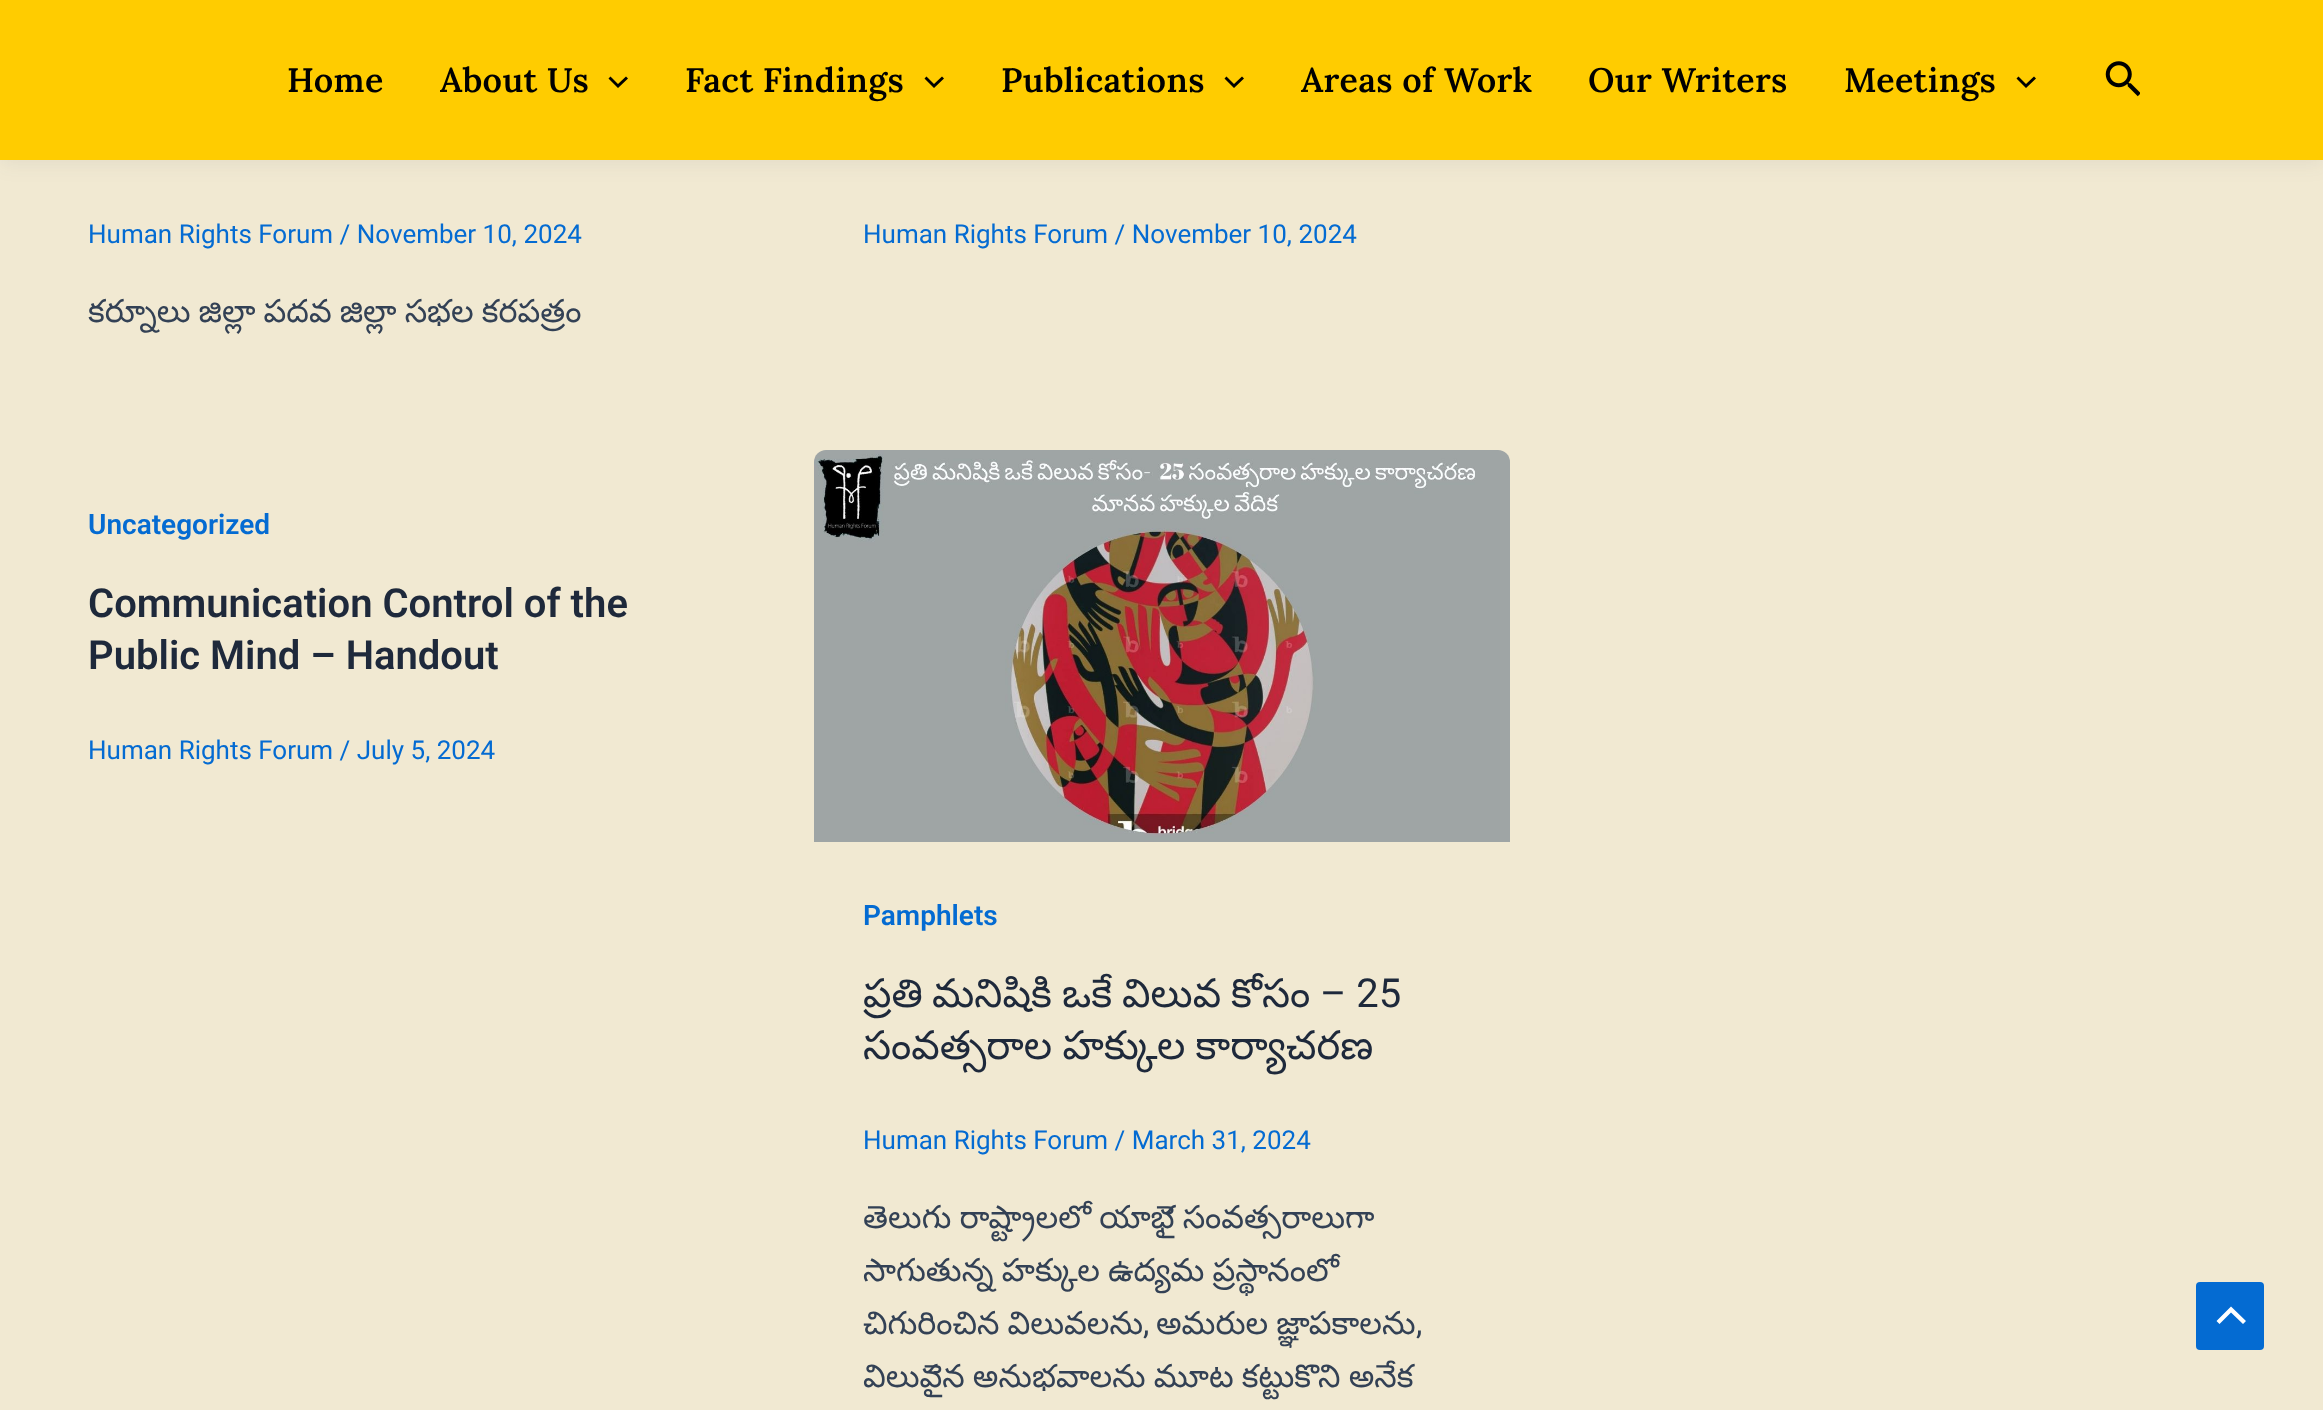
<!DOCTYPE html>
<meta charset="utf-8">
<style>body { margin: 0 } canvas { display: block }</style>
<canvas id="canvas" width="2323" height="1410"></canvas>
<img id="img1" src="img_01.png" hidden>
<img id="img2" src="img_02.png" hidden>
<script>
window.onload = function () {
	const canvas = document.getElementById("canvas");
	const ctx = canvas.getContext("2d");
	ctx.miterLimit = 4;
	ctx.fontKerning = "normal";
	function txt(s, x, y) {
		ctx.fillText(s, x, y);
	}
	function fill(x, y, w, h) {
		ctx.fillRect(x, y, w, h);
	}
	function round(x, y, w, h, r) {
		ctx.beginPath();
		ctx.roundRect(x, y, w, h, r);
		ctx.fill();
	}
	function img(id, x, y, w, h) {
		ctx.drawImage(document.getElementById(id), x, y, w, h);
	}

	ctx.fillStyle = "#F1E9D2";
	fill(0, 0, 2323, 1410);
	ctx.fillStyle = "rgba(36, 50, 66, 0.07)";
	ctx.filter = "blur(10px)";
	ctx.beginPath();
	ctx.rect(0, 4, 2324, 160);
	ctx.fill();
	ctx.filter = "none";
	ctx.fillStyle = "#FFCC00";
	fill(0, 0, 2323, 160);
	ctx.fillStyle = "#010101";
	ctx.beginPath();
	ctx.moveTo(608.5, 78.5);
	ctx.lineTo(618, 88);
	ctx.lineTo(628, 78.5);
	ctx.lineTo(626, 76.5);
	ctx.lineTo(618, 84);
	ctx.lineTo(610.5, 76.5);
	ctx.closePath();
	ctx.fill();
	ctx.beginPath();
	ctx.moveTo(924.5, 78.5);
	ctx.lineTo(934, 88);
	ctx.lineTo(944, 78.5);
	ctx.lineTo(942, 76.5);
	ctx.lineTo(934, 84);
	ctx.lineTo(926.5, 76.5);
	ctx.closePath();
	ctx.fill();
	ctx.beginPath();
	ctx.moveTo(1224.5, 78.5);
	ctx.lineTo(1234, 88);
	ctx.lineTo(1244, 78.5);
	ctx.lineTo(1242, 76.5);
	ctx.lineTo(1234, 84);
	ctx.lineTo(1226.5, 76.5);
	ctx.closePath();
	ctx.fill();
	ctx.beginPath();
	ctx.moveTo(2016.5, 78.5);
	ctx.lineTo(2026, 88);
	ctx.lineTo(2036, 78.5);
	ctx.lineTo(2034, 76.5);
	ctx.lineTo(2026, 84);
	ctx.lineTo(2018.5, 76.5);
	ctx.closePath();
	ctx.fill();
	img("img1", 2105, 61, 35, 36);
	img("img2", 814, 450, 696, 392);
	ctx.fillStyle = "#046BD2";
	round(2196, 1282, 68, 68, 4);
	ctx.fillStyle = "#FFFFFF";
	ctx.beginPath();
	ctx.moveTo(2246, 1321);
	ctx.lineTo(2231, 1306.5);
	ctx.lineTo(2216.5, 1321);
	ctx.lineTo(2219.5, 1324);
	ctx.lineTo(2231, 1312.5);
	ctx.lineTo(2243, 1324);
	ctx.closePath();
	ctx.fill();
	ctx.letterSpacing = "0.4px";
	ctx.font = "600 34px Lora";
	ctx.fillStyle = "#010101";
	txt("Home", 287, 92);
	txt("About Us", 440, 92);
	txt("Fact Findings", 685, 92);
	txt("Publications", 1001, 92);
	txt("Areas of Work", 1301, 92);
	txt("Our Writers", 1588, 92);
	txt("Meetings", 1844, 92);
	ctx.letterSpacing = "0px";
	ctx.font = "26px Roboto";
	ctx.fillStyle = "#046BD2";
	txt("Human Rights Forum / November 10, 2024", 88, 243);
	ctx.wordSpacing = "-1px";
	ctx.font = "32px Noto Sans Telugu";
	ctx.fillStyle = "#334155";
	txt("కర్నూలు జిల్లా పదవ జిల్లా సభల కరపత్రం", 88, 322);
	ctx.wordSpacing = "0px";
	ctx.font = "26px Roboto";
	ctx.fillStyle = "#046BD2";
	txt("Human Rights Forum / November 10, 2024", 863, 243);
	ctx.font = "600 28px Roboto";
	txt("Uncategorized", 88, 534);
	ctx.font = "600 40px Roboto";
	ctx.fillStyle = "#1E293B";
	txt("Communication Control of the", 88, 617);
	txt("Public Mind – Handout", 88, 669);
	ctx.font = "26px Roboto";
	ctx.fillStyle = "#046BD2";
	txt("Human Rights Forum / July 5, 2024", 88, 759);
	ctx.font = "600 28px Roboto";
	txt("Pamphlets", 863, 925);
	ctx.font = "40px Noto Sans Telugu";
	ctx.fillStyle = "#1E293B";
	txt("ప్రతి", 863, 1007);
	txt("మనిషికి", 932, 1007);
	txt("ఒకే", 1062, 1007);
	txt("విలువ", 1122, 1007);
	txt("కోసం", 1231, 1007);
	ctx.font = "40px Roboto";
	txt("– 25", 1320, 1007);
	ctx.wordSpacing = "-1px";
	ctx.font = "40px Noto Sans Telugu";
	txt("సంవత్సరాల హక్కుల కార్యాచరణ", 863, 1059);
	ctx.wordSpacing = "0px";
	ctx.font = "26px Roboto";
	ctx.fillStyle = "#046BD2";
	txt("Human Rights Forum / March 31, 2024", 863, 1149);
	ctx.wordSpacing = "-1px";
	ctx.font = "32px Noto Sans Telugu";
	ctx.fillStyle = "#334155";
	txt("తెలుగు రాష్ట్రాలలో యాభై సంవత్సరాలుగా", 863, 1228);
	txt("సాగుతున్న హక్కుల ఉద్యమ ప్రస్థానంలో", 863, 1281);
	txt("చిగురించిన విలువలను", 863, 1334);
	ctx.wordSpacing = "0px";
	ctx.font = "32px Roboto";
	txt(",", 1143, 1334);
	ctx.wordSpacing = "-1px";
	ctx.font = "32px Noto Sans Telugu";
	txt("అమరుల జ్ఞాపకాలను", 1156, 1334);
	ctx.wordSpacing = "0px";
	ctx.font = "32px Roboto";
	txt(",", 1416, 1334);
	ctx.wordSpacing = "-1px";
	ctx.font = "32px Noto Sans Telugu";
	txt("విలువైన అనుభవాలను మూట కట్టుకొని అనేక", 863, 1387);
};
</script>
